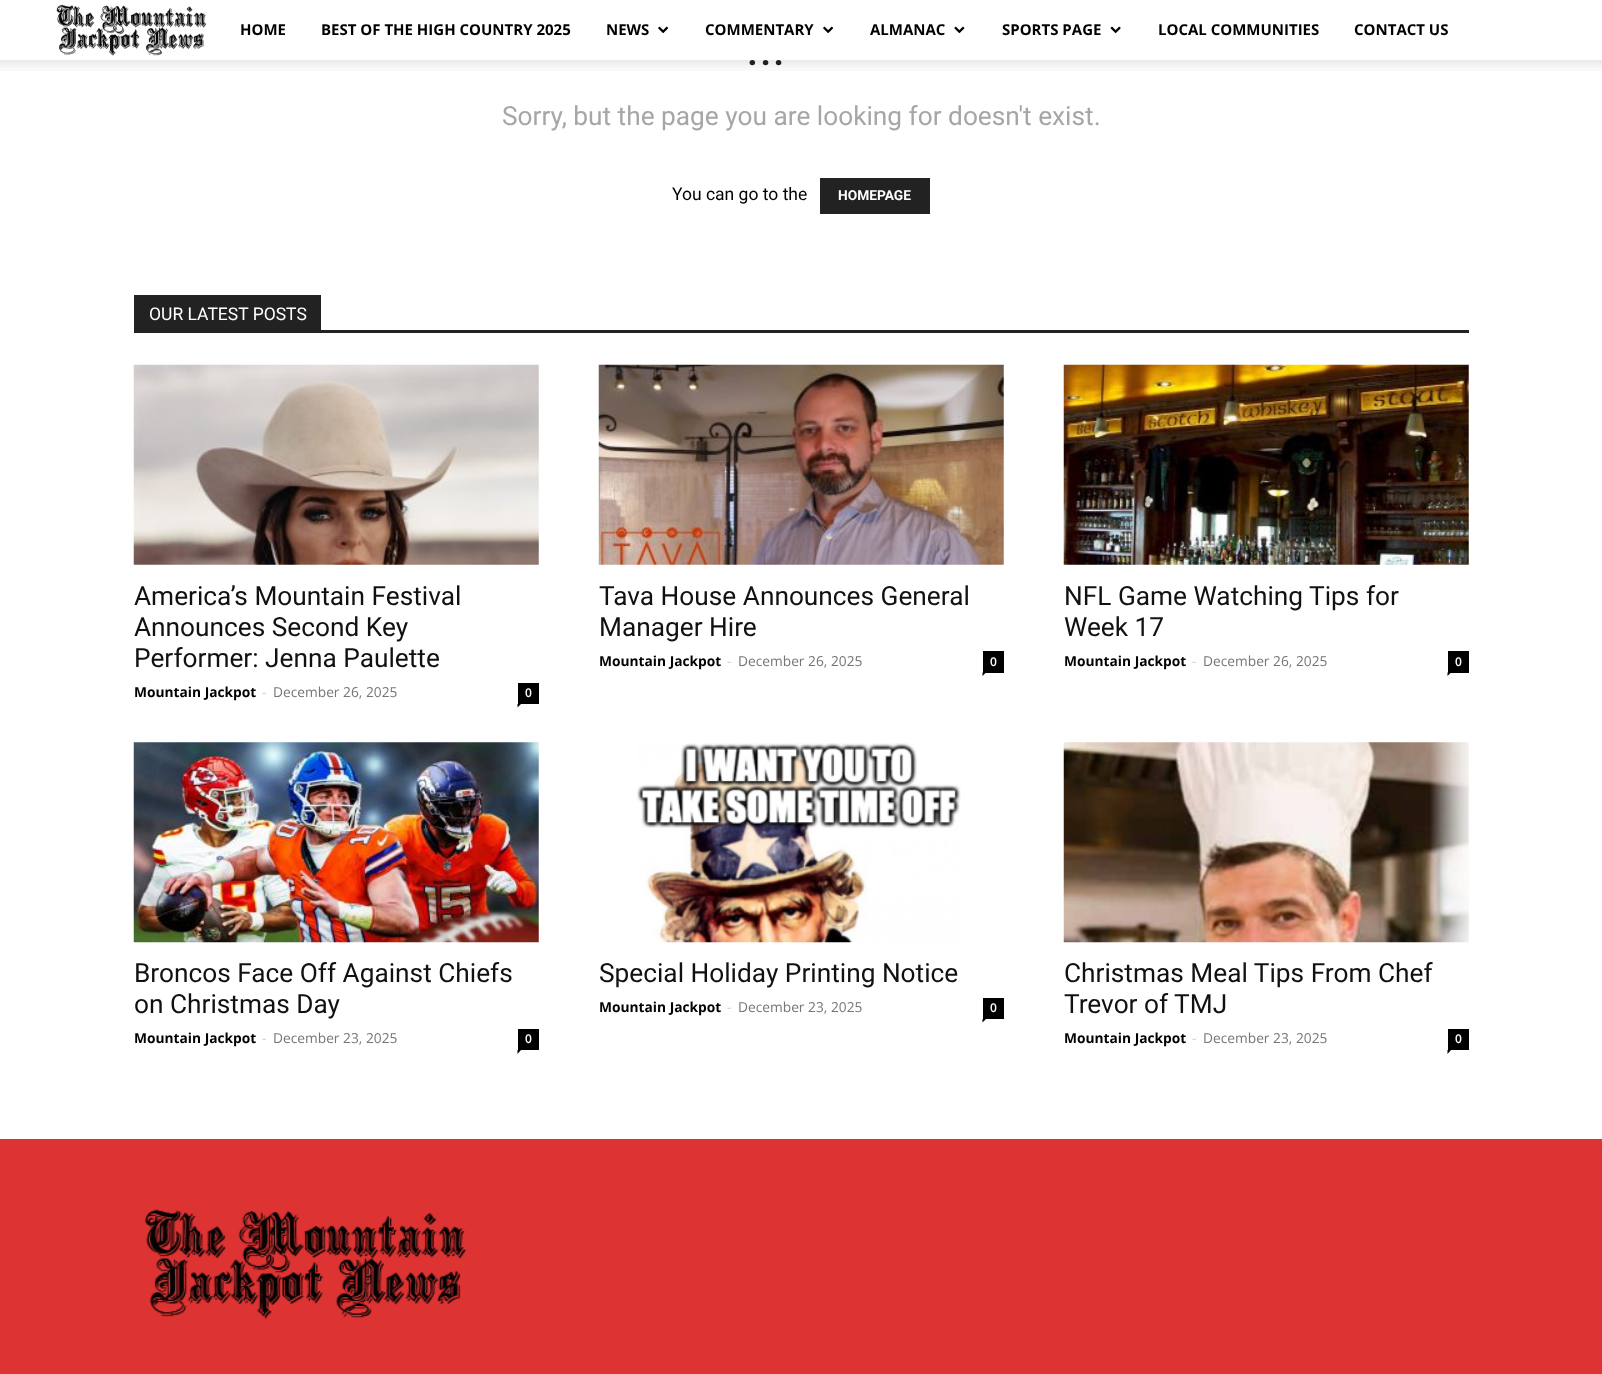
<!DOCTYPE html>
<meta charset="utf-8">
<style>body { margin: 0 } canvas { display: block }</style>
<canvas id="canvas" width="1602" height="1374"></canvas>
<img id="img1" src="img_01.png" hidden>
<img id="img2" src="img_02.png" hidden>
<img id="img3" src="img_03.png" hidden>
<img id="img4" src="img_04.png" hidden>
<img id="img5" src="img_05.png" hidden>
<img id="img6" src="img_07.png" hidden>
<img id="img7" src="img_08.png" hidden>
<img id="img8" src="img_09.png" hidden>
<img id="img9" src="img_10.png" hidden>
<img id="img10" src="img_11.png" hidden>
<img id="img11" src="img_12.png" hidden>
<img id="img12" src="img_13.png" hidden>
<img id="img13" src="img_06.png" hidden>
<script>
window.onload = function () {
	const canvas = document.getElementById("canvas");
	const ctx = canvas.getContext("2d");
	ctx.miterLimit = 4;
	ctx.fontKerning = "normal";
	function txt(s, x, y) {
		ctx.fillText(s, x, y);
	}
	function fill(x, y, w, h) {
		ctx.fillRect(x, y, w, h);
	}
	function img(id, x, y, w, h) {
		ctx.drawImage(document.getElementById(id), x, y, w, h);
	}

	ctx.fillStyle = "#FFFFFF";
	fill(0, 0, 1602, 1374);
	img("img1", 56, 4, 151, 52);
	img("img2", 658, 26, 11, 8);
	img("img3", 823, 26, 11, 8);
	img("img4", 954, 26, 11, 8);
	img("img5", 1110, 26, 11, 8);
	ctx.fillStyle = "#222222";
	fill(820, 178, 110, 36);
	fill(134, 330, 1335, 3);
	fill(134, 295, 187, 35);
	img("img6", 133, 364, 406, 201);
	ctx.fillStyle = "#000000";
	fill(518, 683, 21, 21);
	ctx.beginPath();
	ctx.moveTo(517.5, 704);
	ctx.lineTo(521, 704);
	ctx.lineTo(517.5, 707.5);
	ctx.closePath();
	ctx.fill();
	img("img7", 598, 364, 406, 201);
	fill(983, 651, 21, 22);
	ctx.beginPath();
	ctx.moveTo(982.5, 672.5);
	ctx.lineTo(986, 672.5);
	ctx.lineTo(982.5, 676);
	ctx.closePath();
	ctx.fill();
	img("img8", 1063, 364, 406, 201);
	fill(1448, 651, 21, 22);
	ctx.beginPath();
	ctx.moveTo(1447.5, 672.5);
	ctx.lineTo(1451, 672.5);
	ctx.lineTo(1447.5, 676);
	ctx.closePath();
	ctx.fill();
	img("img9", 133, 742, 406, 201);
	fill(518, 1029, 21, 21);
	ctx.beginPath();
	ctx.moveTo(517.5, 1050);
	ctx.lineTo(521, 1050);
	ctx.lineTo(517.5, 1054);
	ctx.closePath();
	ctx.fill();
	img("img10", 637, 743, 324, 200);
	fill(983, 998, 21, 21);
	ctx.beginPath();
	ctx.moveTo(982.5, 1019);
	ctx.lineTo(986, 1019);
	ctx.lineTo(982.5, 1022.5);
	ctx.closePath();
	ctx.fill();
	img("img11", 1063, 742, 406, 201);
	fill(1448, 1029, 21, 21);
	ctx.beginPath();
	ctx.moveTo(1447.5, 1050);
	ctx.lineTo(1451, 1050);
	ctx.lineTo(1447.5, 1054);
	ctx.closePath();
	ctx.fill();
	ctx.fillStyle = "#DD3333";
	fill(0, 1139, 1602, 235);
	img("img12", 144, 1209, 323, 110);
	ctx.font = "bold 15px Open Sans";
	ctx.fillStyle = "#000000";
	txt("HOME", 240, 35);
	txt("BEST OF THE HIGH COUNTRY 2025", 321, 35);
	txt("NEWS", 606, 35);
	txt("COMMENTARY", 705, 35);
	txt("ALMANAC", 870, 35);
	txt("SPORTS PAGE", 1002, 35);
	txt("LOCAL COMMUNITIES", 1158, 35);
	txt("CONTACT US", 1354, 35);
	ctx.font = "50px Roboto";
	ctx.fillStyle = "#222222";
	txt("...", 746, 65);
	img("img13", 0, 60, 1602, 11);
	ctx.fillStyle = "rgba(255, 255, 255, 0.95)";
	fill(751, 59, 28, 1);
	ctx.font = "26.25px Roboto";
	ctx.fillStyle = "#A6A6A6";
	txt("Sorry, but the page you are looking for doesn't exist.", 502, 125);
	ctx.font = "17.5px Roboto";
	ctx.fillStyle = "#000000";
	txt("You can go to the", 672, 200);
	ctx.font = "bold 13.75px Roboto";
	ctx.fillStyle = "#FFFFFF";
	txt("HOMEPAGE", 838, 200);
	ctx.font = "17.5px Roboto";
	txt("OUR LATEST POSTS", 149, 320);
	ctx.font = "26.25px Roboto";
	ctx.fillStyle = "#111111";
	txt("America’s Mountain Festival", 134, 605);
	txt("Announces Second Key", 134, 636);
	txt("Performer: Jenna Paulette", 134, 667);
	ctx.font = "bold 13.75px Open Sans";
	ctx.fillStyle = "#000000";
	txt("Mountain Jackpot", 134, 697);
	ctx.font = "13.75px Open Sans";
	ctx.fillStyle = "#CCCCCC";
	txt("-", 262, 697);
	ctx.fillStyle = "#767676";
	txt("December 26, 2025", 273, 697);
	ctx.font = "600 12px Open Sans";
	ctx.fillStyle = "#FFFFFF";
	txt("0", 525, 697);
	ctx.font = "26.25px Roboto";
	ctx.fillStyle = "#111111";
	txt("Tava House Announces General", 599, 605);
	txt("Manager Hire", 599, 636);
	ctx.font = "bold 13.75px Open Sans";
	ctx.fillStyle = "#000000";
	txt("Mountain Jackpot", 599, 666);
	ctx.font = "13.75px Open Sans";
	ctx.fillStyle = "#CCCCCC";
	txt("-", 727, 666);
	ctx.fillStyle = "#767676";
	txt("December 26, 2025", 738, 666);
	ctx.font = "600 12px Open Sans";
	ctx.fillStyle = "#FFFFFF";
	txt("0", 990, 666);
	ctx.font = "26.25px Roboto";
	ctx.fillStyle = "#111111";
	txt("NFL Game Watching Tips for", 1064, 605);
	txt("Week 17", 1064, 636);
	ctx.font = "bold 13.75px Open Sans";
	ctx.fillStyle = "#000000";
	txt("Mountain Jackpot", 1064, 666);
	ctx.font = "13.75px Open Sans";
	ctx.fillStyle = "#CCCCCC";
	txt("-", 1192, 666);
	ctx.fillStyle = "#767676";
	txt("December 26, 2025", 1203, 666);
	ctx.font = "600 12px Open Sans";
	ctx.fillStyle = "#FFFFFF";
	txt("0", 1455, 666);
	ctx.font = "26.25px Roboto";
	ctx.fillStyle = "#111111";
	txt("Broncos Face Off Against Chiefs", 134, 982);
	txt("on Christmas Day", 134, 1013);
	ctx.font = "bold 13.75px Open Sans";
	ctx.fillStyle = "#000000";
	txt("Mountain Jackpot", 134, 1043);
	ctx.font = "13.75px Open Sans";
	ctx.fillStyle = "#CCCCCC";
	txt("-", 262, 1043);
	ctx.fillStyle = "#767676";
	txt("December 23, 2025", 273, 1043);
	ctx.font = "600 12px Open Sans";
	ctx.fillStyle = "#FFFFFF";
	txt("0", 525, 1043);
	ctx.font = "26.25px Roboto";
	ctx.fillStyle = "#111111";
	txt("Special Holiday Printing Notice", 599, 982);
	ctx.font = "bold 13.75px Open Sans";
	ctx.fillStyle = "#000000";
	txt("Mountain Jackpot", 599, 1012);
	ctx.font = "13.75px Open Sans";
	ctx.fillStyle = "#CCCCCC";
	txt("-", 727, 1012);
	ctx.fillStyle = "#767676";
	txt("December 23, 2025", 738, 1012);
	ctx.font = "600 12px Open Sans";
	ctx.fillStyle = "#FFFFFF";
	txt("0", 990, 1012);
	ctx.font = "26.25px Roboto";
	ctx.fillStyle = "#111111";
	txt("Christmas Meal Tips From Chef", 1064, 982);
	txt("Trevor of TMJ", 1064, 1013);
	ctx.font = "bold 13.75px Open Sans";
	ctx.fillStyle = "#000000";
	txt("Mountain Jackpot", 1064, 1043);
	ctx.font = "13.75px Open Sans";
	ctx.fillStyle = "#CCCCCC";
	txt("-", 1192, 1043);
	ctx.fillStyle = "#767676";
	txt("December 23, 2025", 1203, 1043);
	ctx.font = "600 12px Open Sans";
	ctx.fillStyle = "#FFFFFF";
	txt("0", 1455, 1043);
};
</script>
